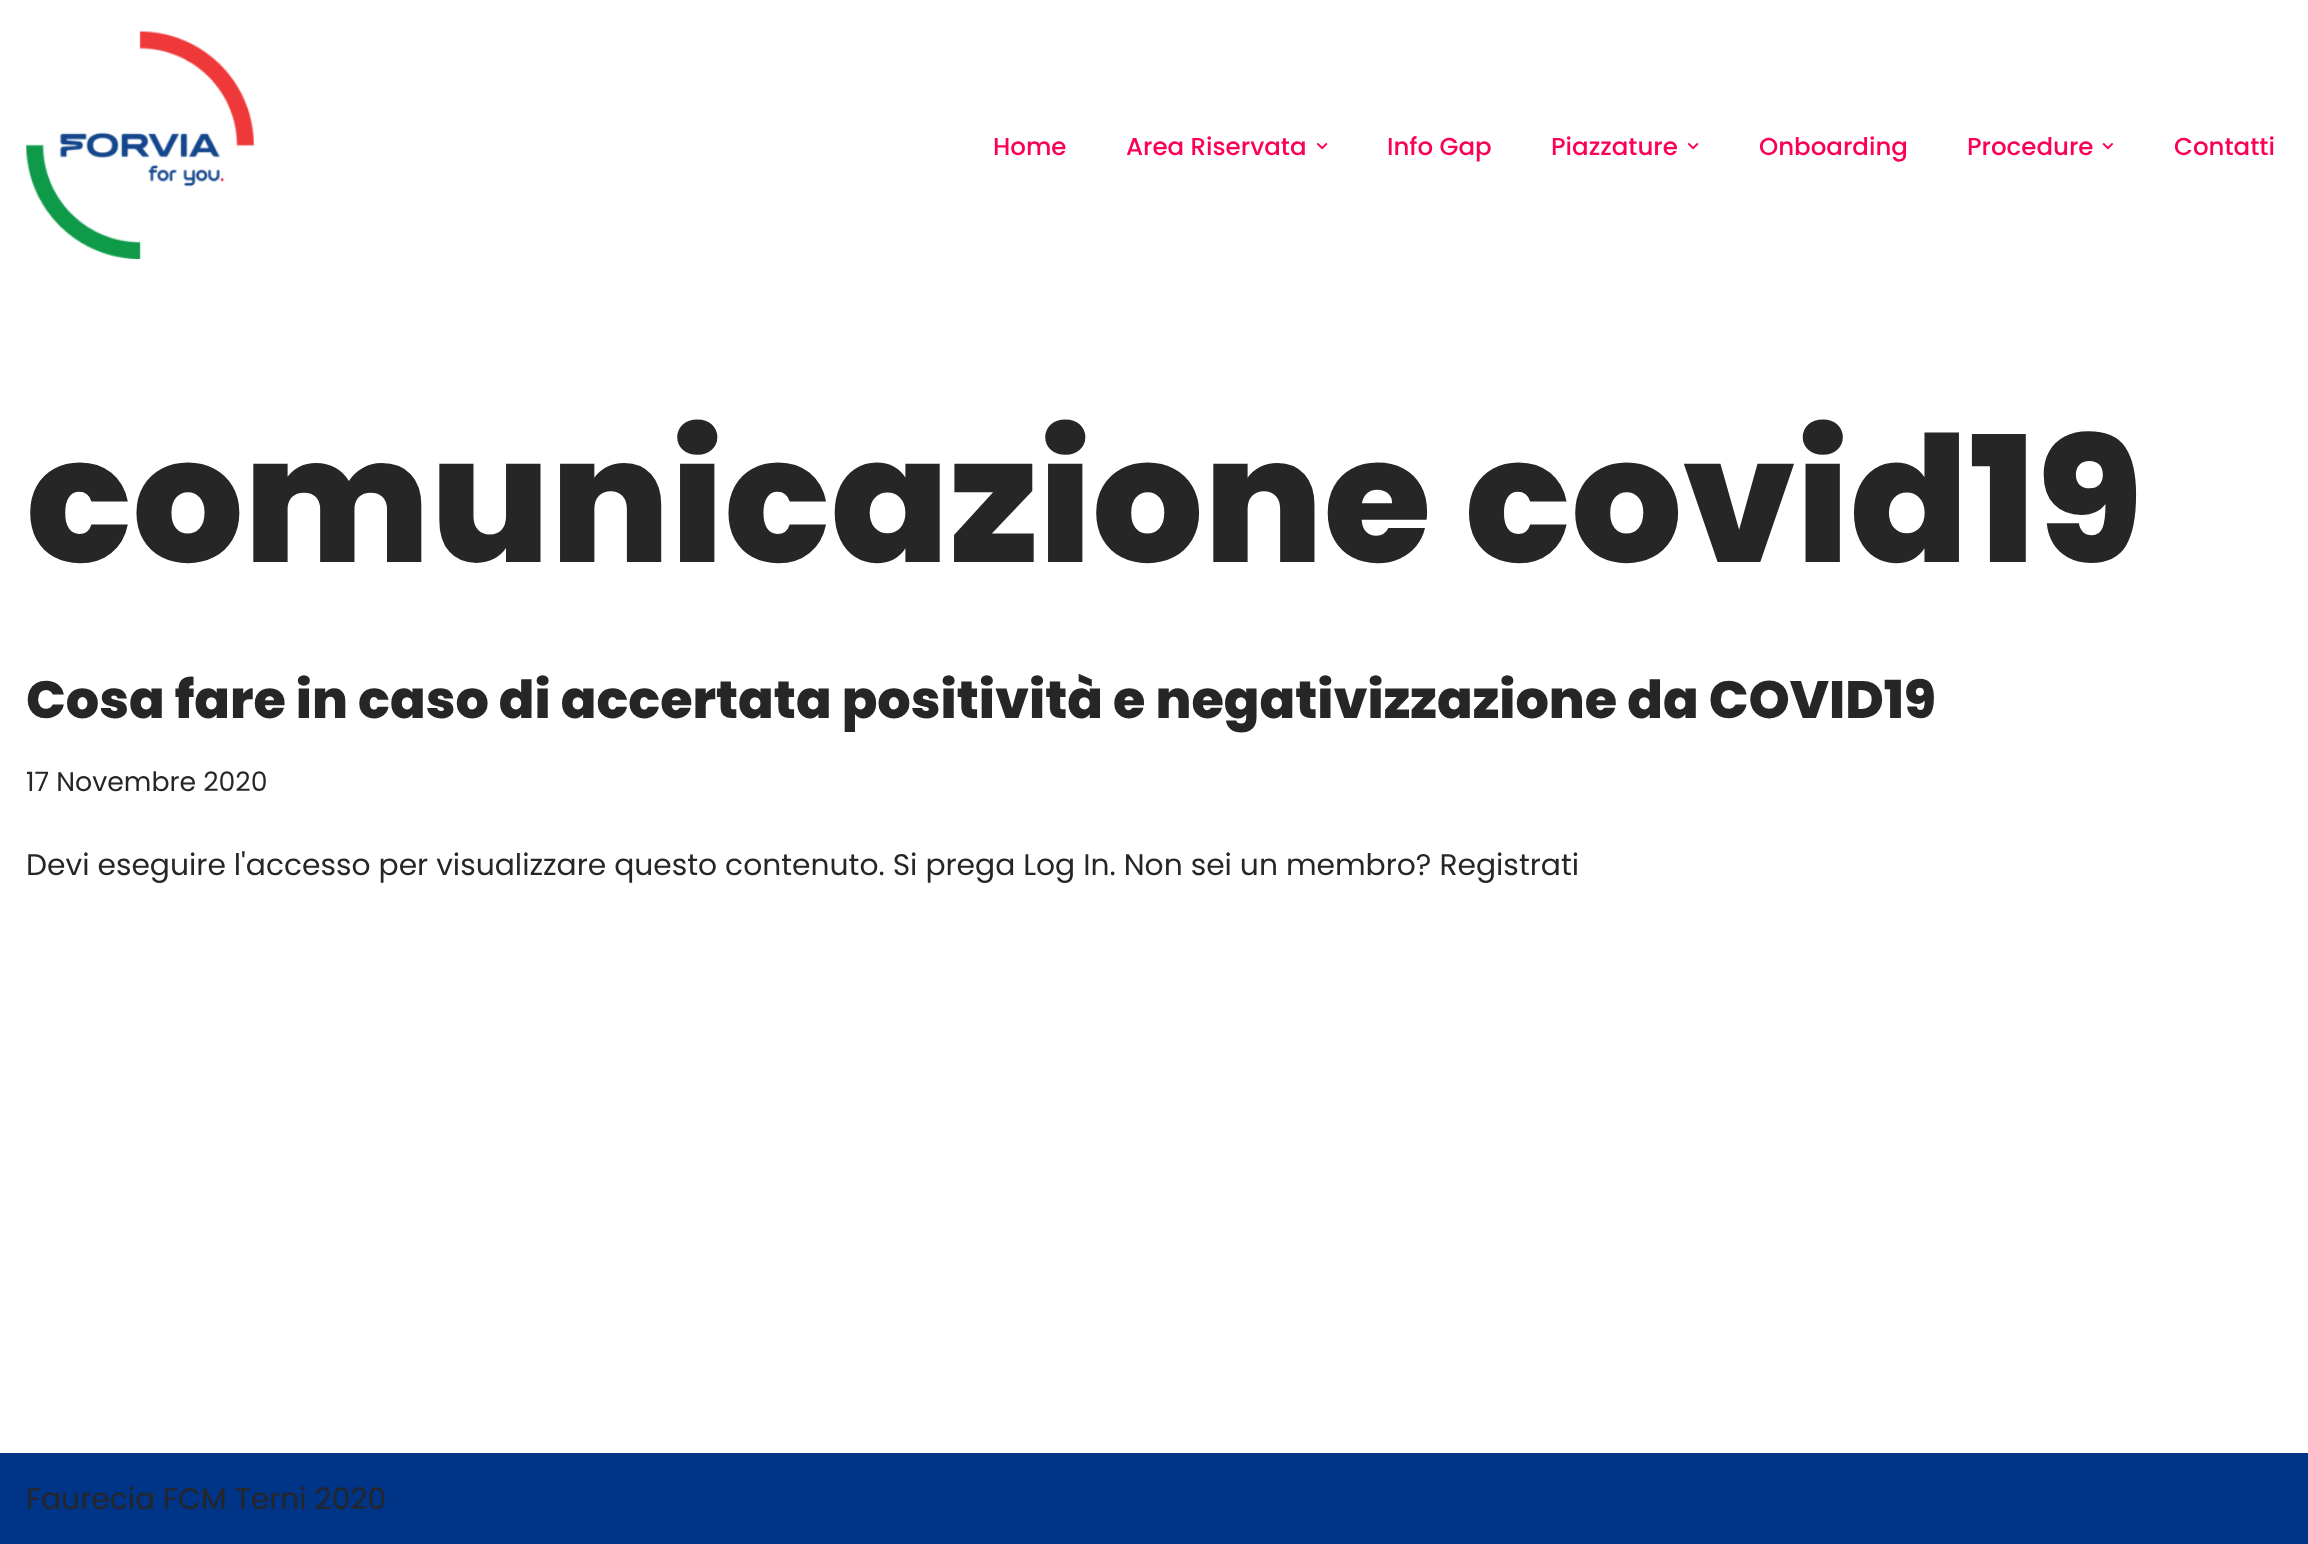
<!DOCTYPE html>
<meta charset="utf-8">
<style>body { margin: 0 } canvas { display: block }</style>
<canvas id="canvas" width="2308" height="1544"></canvas>
<img id="img1" src="img_01.png" hidden>
<img id="img2" src="img_02.png" hidden>
<img id="img3" src="img_03.png" hidden>
<script>
window.onload = function () {
	const canvas = document.getElementById("canvas");
	const ctx = canvas.getContext("2d");
	ctx.miterLimit = 4;
	ctx.fontKerning = "normal";
	function txt(s, x, y) {
		ctx.fillText(s, x, y);
	}
	function fill(x, y, w, h) {
		ctx.fillRect(x, y, w, h);
	}
	function img(id, x, y, w, h) {
		ctx.drawImage(document.getElementById(id), x, y, w, h);
	}

	ctx.fillStyle = "#FFFFFF";
	fill(0, 0, 2308, 1544);
	img("img1", 26, 31, 228, 228);
	img("img2", 1317, 143, 11, 7);
	img("img2", 1688, 143, 11, 7);
	img("img3", 2102, 143, 11, 7);
	ctx.fillStyle = "#003486";
	fill(0, 1453, 2308, 91);
	ctx.font = "500 24.5px Poppins";
	ctx.fillStyle = "#FA0057";
	txt("Home", 993, 155);
	txt("Area Riservata", 1126, 155);
	txt("Info Gap", 1387, 155);
	txt("Piazzature", 1551, 155);
	txt("Onboarding", 1759, 155);
	txt("Procedure", 1967, 155);
	txt("Contatti", 2174, 155);
	ctx.font = "800 175px Poppins";
	ctx.fillStyle = "#272626";
	txt("comunicazione covid19", 26, 562);
	ctx.font = "800 52.5px Poppins";
	txt("Cosa fare in caso di accertata positività e negativizzazione da COVID19", 26, 718);
	ctx.font = "26.75px Poppins";
	txt("17 Novembre 2020", 26, 791);
	ctx.font = "29.75px Poppins";
	txt("Devi eseguire l'accesso per visualizzare questo contenuto. Si prega Log In. Non sei un membro? Registrati", 26, 875);
	txt("Faurecia FCM Terni 2020", 26, 1509);
};
</script>
